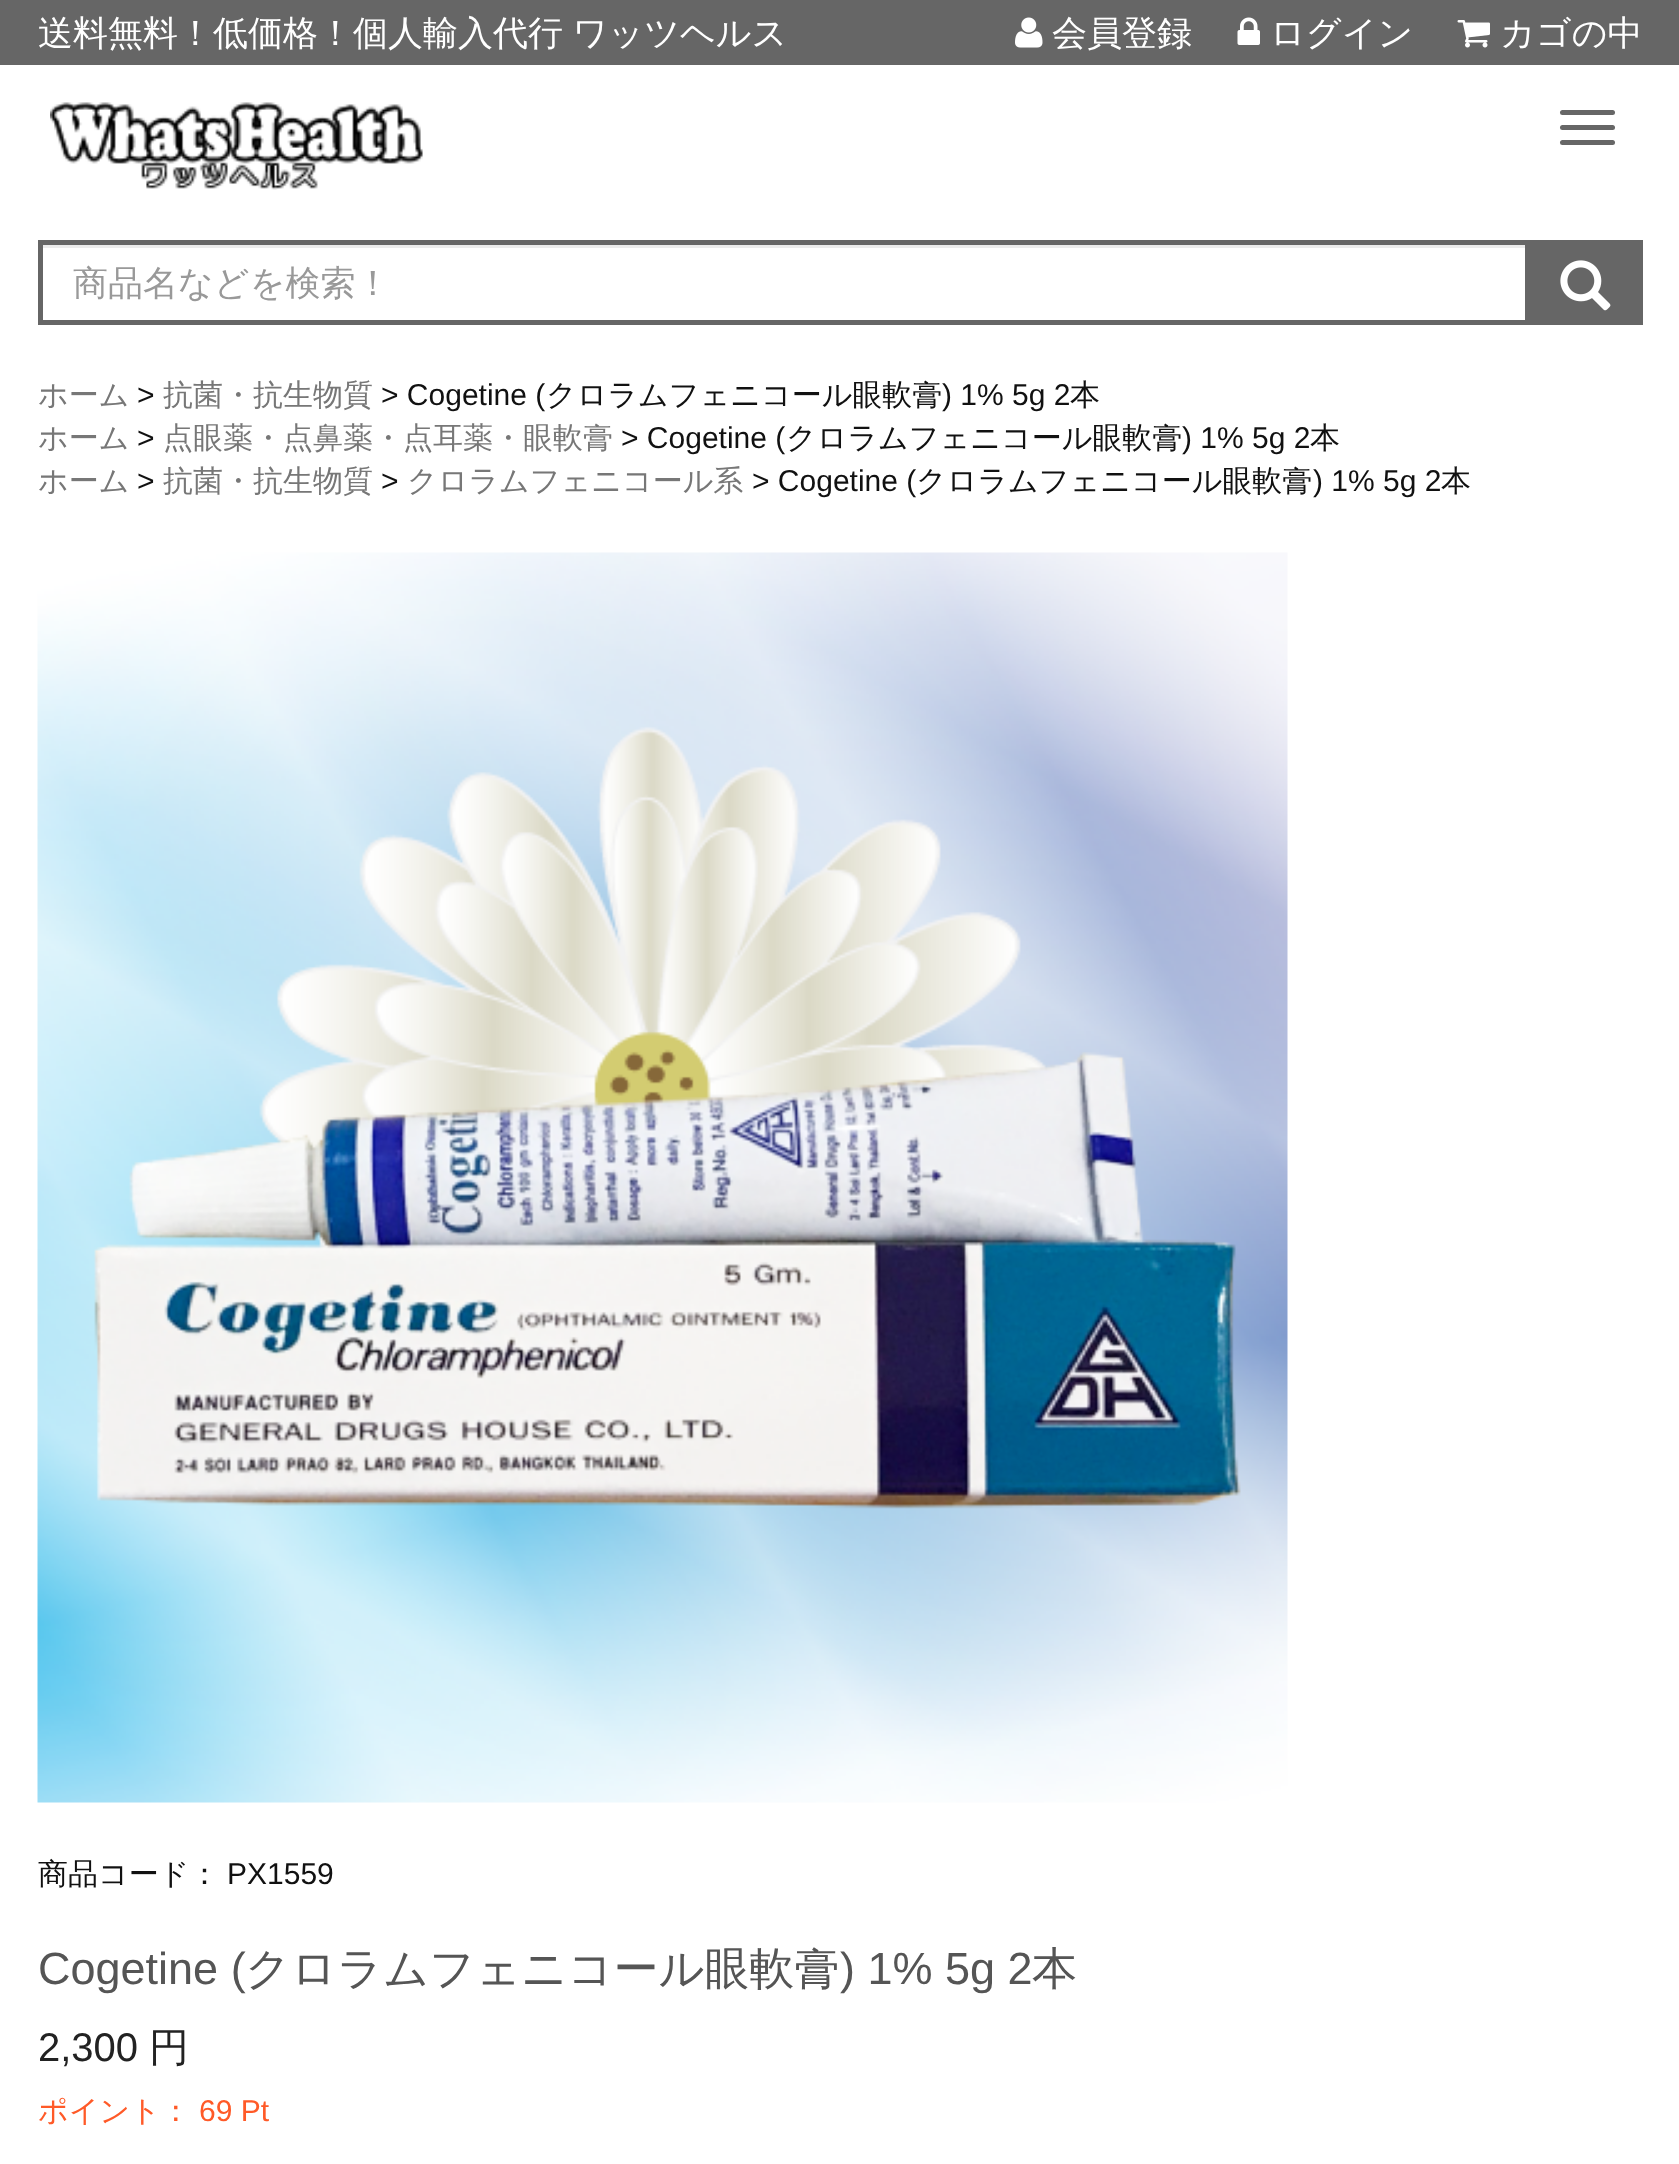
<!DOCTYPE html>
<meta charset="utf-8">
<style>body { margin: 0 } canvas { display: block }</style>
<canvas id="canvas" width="1679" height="2164"></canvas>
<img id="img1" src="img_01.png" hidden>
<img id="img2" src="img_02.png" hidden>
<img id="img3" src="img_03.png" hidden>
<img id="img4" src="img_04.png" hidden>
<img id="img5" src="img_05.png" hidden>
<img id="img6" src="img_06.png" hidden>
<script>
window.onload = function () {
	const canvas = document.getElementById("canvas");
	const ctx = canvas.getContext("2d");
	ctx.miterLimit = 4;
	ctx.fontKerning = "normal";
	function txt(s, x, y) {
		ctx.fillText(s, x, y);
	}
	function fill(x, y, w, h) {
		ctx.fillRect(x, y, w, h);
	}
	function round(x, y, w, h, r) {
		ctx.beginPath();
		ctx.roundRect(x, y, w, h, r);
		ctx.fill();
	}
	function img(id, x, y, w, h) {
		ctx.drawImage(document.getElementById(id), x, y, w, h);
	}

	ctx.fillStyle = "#FFFFFF";
	fill(0, 0, 1679, 2164);
	ctx.fillStyle = "#666666";
	fill(0, 0, 1679, 65);
	img("img1", 1015, 17, 28, 31);
	img("img2", 1237, 17, 23, 28);
	img("img3", 1457, 20, 33, 28);
	img("img4", 50, 102, 373, 88);
	round(1560, 110, 55, 5, 2.5);
	round(1560, 125, 55, 5, 2.5);
	round(1560, 140, 55, 5, 2.5);
	ctx.fillStyle = "#ECECEC";
	fill(43, 245, 1482, 3);
	ctx.strokeStyle = "#666666";
	ctx.lineWidth = 5;
	ctx.strokeRect(40.5, 242.5, 1487, 80);
	ctx.fillStyle = "#666666";
	fill(1530, 240, 113, 85);
	img("img5", 1560, 260, 51, 51);
	img("img6", 37, 552, 1251, 1251);
	ctx.wordSpacing = "-1px";
	ctx.font = "500 35px WenQuanYi Zen Hei";
	ctx.fillStyle = "#FFFFFF";
	txt("送料無料！低価格！個人輸入代行 ワッツヘルス", 38, 45);
	ctx.wordSpacing = "0px";
	txt("会員登録", 1052, 45);
	txt("ログイン", 1270, 45);
	txt("カゴの中", 1500, 45);
	ctx.fillStyle = "#999999";
	txt("商品名などを検索！", 73, 295);
	ctx.font = "500 30px WenQuanYi Zen Hei";
	ctx.fillStyle = "#777777";
	txt("ホーム", 38, 405);
	ctx.font = "30px Liberation Sans";
	ctx.fillStyle = "#111111";
	txt(">", 137, 405);
	ctx.font = "500 30px WenQuanYi Zen Hei";
	ctx.fillStyle = "#777777";
	txt("抗菌・抗生物質", 163, 405);
	ctx.font = "30px Liberation Sans";
	ctx.fillStyle = "#111111";
	txt("> Cogetine (", 381, 405);
	ctx.font = "500 30px WenQuanYi Zen Hei";
	txt("クロラムフェニコール眼軟膏", 546, 405);
	ctx.font = "30px Liberation Sans";
	txt(") 1% 5g 2", 942, 405);
	ctx.font = "500 30px WenQuanYi Zen Hei";
	txt("本", 1070, 405);
	ctx.fillStyle = "#777777";
	txt("ホーム", 38, 448);
	ctx.font = "30px Liberation Sans";
	ctx.fillStyle = "#111111";
	txt(">", 137, 448);
	ctx.font = "500 30px WenQuanYi Zen Hei";
	ctx.fillStyle = "#777777";
	txt("点眼薬・点鼻薬・点耳薬・眼軟膏", 163, 448);
	ctx.font = "30px Liberation Sans";
	ctx.fillStyle = "#111111";
	txt("> Cogetine (", 621, 448);
	ctx.font = "500 30px WenQuanYi Zen Hei";
	txt("クロラムフェニコール眼軟膏", 786, 448);
	ctx.font = "30px Liberation Sans";
	txt(") 1% 5g 2", 1182, 448);
	ctx.font = "500 30px WenQuanYi Zen Hei";
	txt("本", 1310, 448);
	ctx.fillStyle = "#777777";
	txt("ホーム", 38, 491);
	ctx.font = "30px Liberation Sans";
	ctx.fillStyle = "#111111";
	txt(">", 137, 491);
	ctx.font = "500 30px WenQuanYi Zen Hei";
	ctx.fillStyle = "#777777";
	txt("抗菌・抗生物質", 163, 491);
	ctx.font = "30px Liberation Sans";
	ctx.fillStyle = "#111111";
	txt(">", 381, 491);
	ctx.font = "500 30px WenQuanYi Zen Hei";
	ctx.fillStyle = "#777777";
	txt("クロラムフェニコール系", 407, 491);
	ctx.font = "30px Liberation Sans";
	ctx.fillStyle = "#111111";
	txt("> Cogetine (", 752, 491);
	ctx.font = "500 30px WenQuanYi Zen Hei";
	txt("クロラムフェニコール眼軟膏", 916, 491);
	ctx.font = "30px Liberation Sans";
	txt(") 1% 5g 2", 1313, 491);
	ctx.font = "500 30px WenQuanYi Zen Hei";
	txt("本", 1441, 491);
	txt("商品コード：", 38, 1884);
	ctx.font = "30px Liberation Sans";
	txt("PX1559", 227, 1884);
	ctx.font = "45px Liberation Sans";
	ctx.fillStyle = "#555555";
	txt("Cogetine (", 38, 1984);
	ctx.font = "500 45px WenQuanYi Zen Hei";
	txt("クロラムフェニコール眼軟膏", 245, 1984);
	ctx.font = "45px Liberation Sans";
	txt(") 1% 5g 2", 840, 1984);
	ctx.font = "500 45px WenQuanYi Zen Hei";
	txt("本", 1032, 1984);
	ctx.font = "40px Liberation Sans";
	ctx.fillStyle = "#222222";
	txt("2,300", 38, 2061);
	ctx.font = "500 40px WenQuanYi Zen Hei";
	txt("円", 149, 2061);
	ctx.font = "500 30px WenQuanYi Zen Hei";
	ctx.fillStyle = "#FF5A28";
	txt("ポイント：", 38, 2121);
	ctx.font = "30px Liberation Sans";
	txt("69 Pt", 199, 2121);
};
</script>
